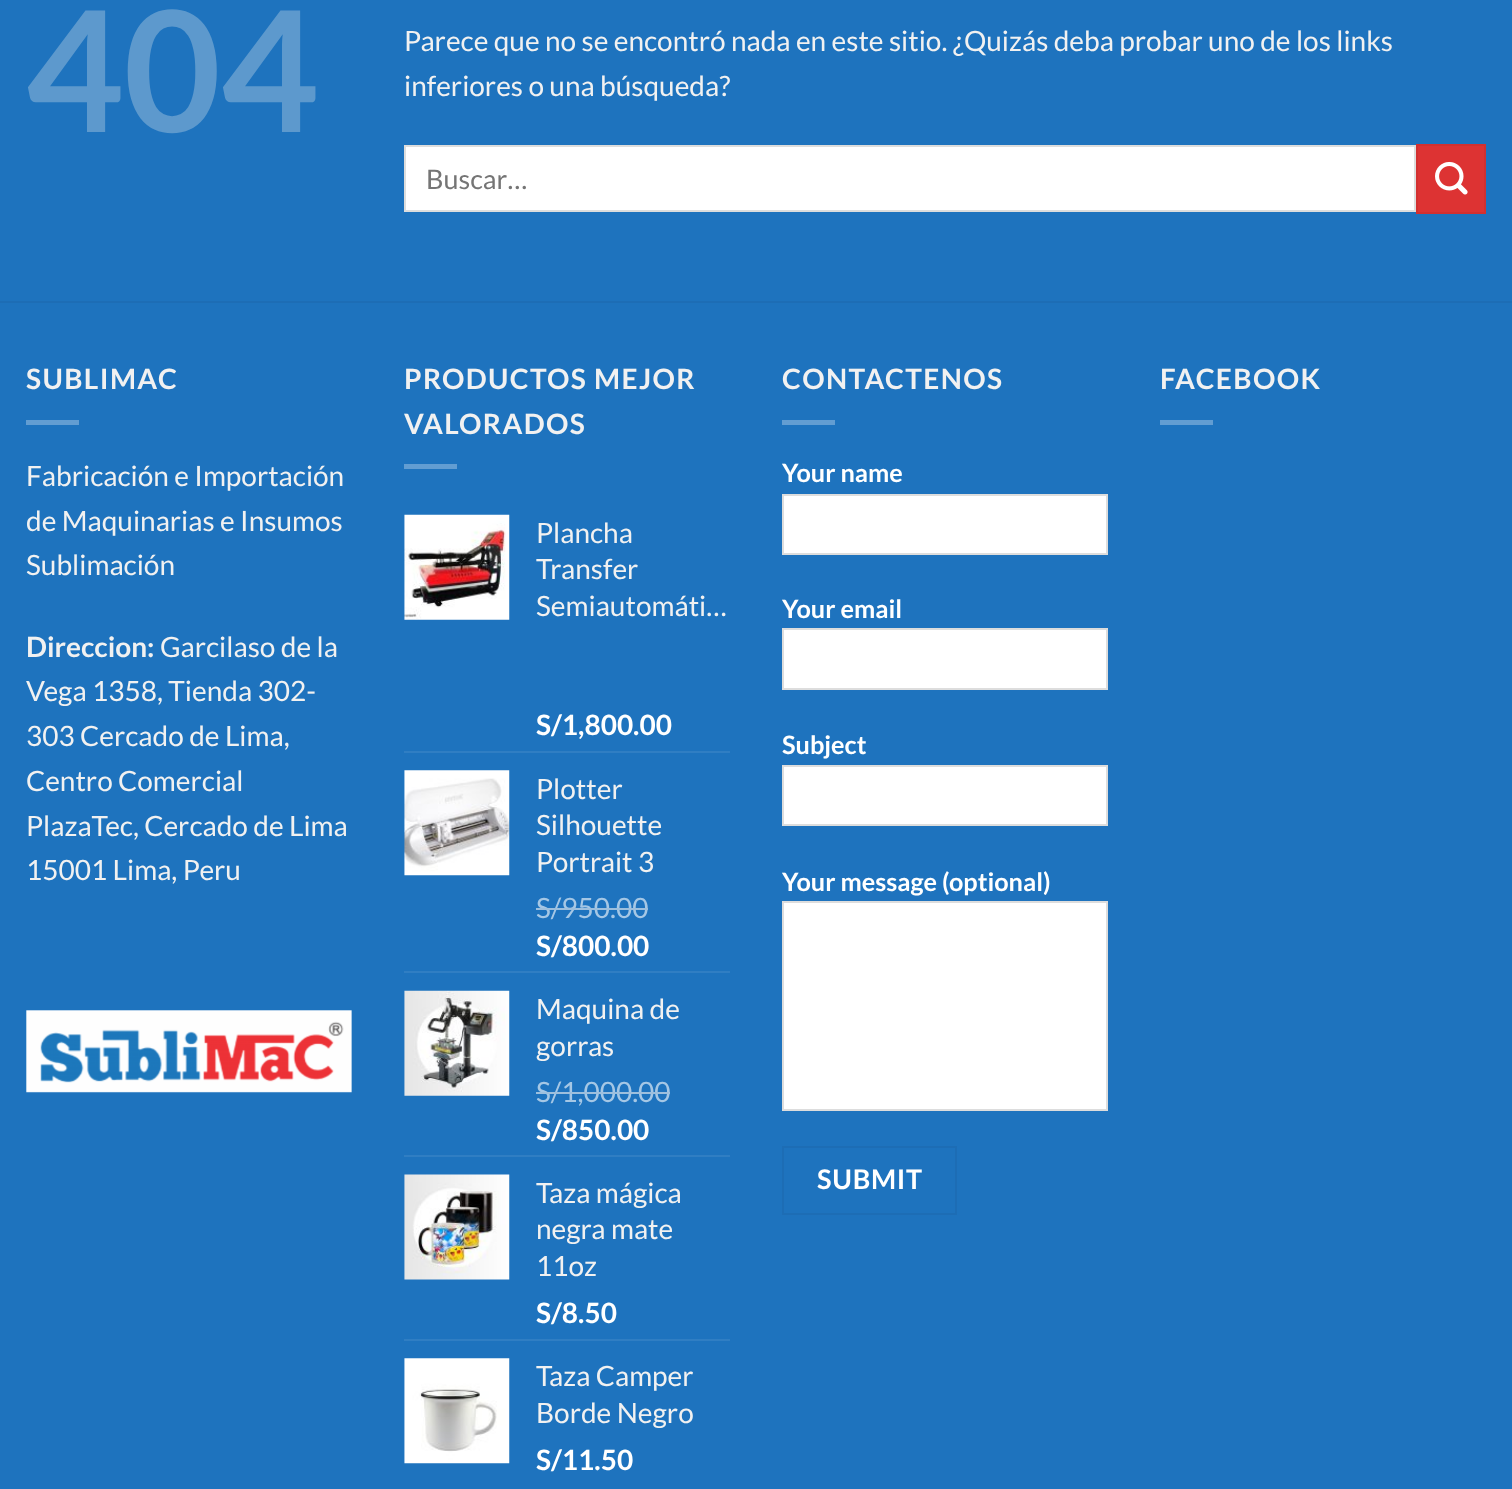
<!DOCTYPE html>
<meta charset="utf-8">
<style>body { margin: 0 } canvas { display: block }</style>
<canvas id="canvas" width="1512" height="1489"></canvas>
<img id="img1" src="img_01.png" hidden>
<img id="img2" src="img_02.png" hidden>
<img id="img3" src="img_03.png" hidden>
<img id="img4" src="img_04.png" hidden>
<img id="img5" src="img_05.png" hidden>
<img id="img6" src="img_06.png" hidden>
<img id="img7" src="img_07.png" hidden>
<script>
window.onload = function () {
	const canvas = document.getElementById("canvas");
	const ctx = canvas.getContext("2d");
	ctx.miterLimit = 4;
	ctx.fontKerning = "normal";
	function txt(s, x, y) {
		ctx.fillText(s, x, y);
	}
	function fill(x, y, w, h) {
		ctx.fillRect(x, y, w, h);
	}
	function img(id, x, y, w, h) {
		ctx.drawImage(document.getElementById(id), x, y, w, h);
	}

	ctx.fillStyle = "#1E73BE";
	fill(0, 0, 1512, 1489);
	ctx.fillStyle = "#FFFFFF";
	ctx.beginPath();
	ctx.rect(405, 146, 1010, 65);
	ctx.fill();
	ctx.strokeStyle = "#DDDDDD";
	ctx.lineWidth = 2;
	ctx.stroke();
	ctx.fillStyle = "#DD3333";
	ctx.beginPath();
	ctx.rect(1417, 145, 68, 68);
	ctx.fill();
	ctx.strokeStyle = "#D23030";
	ctx.stroke();
	img("img1", 1435, 161, 33, 34);
	ctx.fillStyle = "#1D6DB5";
	fill(0, 301, 1512, 2);
	ctx.fillStyle = "#629DD2";
	fill(26, 420, 53, 5);
	img("img2", 26, 1010, 326, 83);
	fill(404, 464, 53, 5);
	img("img3", 404, 514, 106, 106);
	ctx.fillStyle = "#307EC3";
	fill(404, 751, 326, 2);
	img("img4", 404, 770, 106, 106);
	fill(404, 971, 326, 2);
	img("img5", 404, 990, 106, 106);
	fill(404, 1155, 326, 2);
	img("img6", 404, 1174, 106, 106);
	fill(404, 1339, 326, 2);
	img("img7", 404, 1358, 106, 106);
	ctx.fillStyle = "#629DD2";
	fill(782, 420, 53, 5);
	ctx.fillStyle = "#FFFFFF";
	ctx.beginPath();
	ctx.rect(783, 495, 324, 59);
	ctx.fill();
	ctx.strokeStyle = "#DDDDDD";
	ctx.stroke();
	ctx.beginPath();
	ctx.rect(783, 629, 324, 60);
	ctx.fill();
	ctx.stroke();
	ctx.beginPath();
	ctx.rect(783, 766, 324, 59);
	ctx.fill();
	ctx.stroke();
	ctx.beginPath();
	ctx.rect(783, 902, 324, 208);
	ctx.fill();
	ctx.stroke();
	ctx.strokeStyle = "#1D6DB5";
	ctx.strokeRect(783, 1147, 173, 67);
	ctx.fillStyle = "#629DD2";
	fill(1160, 420, 53, 5);
	ctx.font = "bold 168px Lato";
	ctx.fillStyle = "#5D99CD";
	txt("404", 26, 132);
	ctx.font = "28px Lato";
	ctx.fillStyle = "#F1F1F1";
	txt("Parece que no se encontró nada en este sitio. ¿Quizás deba probar uno de los links", 404, 51);
	txt("inferiores o una búsqueda?", 404, 96);
	ctx.font = "27px Lato";
	ctx.fillStyle = "#757575";
	txt("Buscar…", 426, 189);
	ctx.letterSpacing = "1.4px";
	ctx.font = "bold 28px Lato";
	ctx.fillStyle = "#F1F1F1";
	txt("SUBLIMAC", 26, 389);
	ctx.letterSpacing = "0px";
	ctx.font = "28px Lato";
	txt("Fabricación e Importación", 26, 486);
	txt("de Maquinarias e Insumos", 26, 531);
	txt("Sublimación", 26, 575);
	ctx.font = "bold 28px Lato";
	txt("Direccion:", 26, 657);
	ctx.font = "28px Lato";
	txt("Garcilaso de la", 160, 657);
	txt("Vega 1358, Tienda 302-", 26, 701);
	txt("303 Cercado de Lima,", 26, 746);
	txt("Centro Comercial", 26, 791);
	txt("PlazaTec, Cercado de Lima", 26, 836);
	txt("15001 Lima, Peru", 26, 880);
	ctx.letterSpacing = "1.4px";
	ctx.font = "bold 28px Lato";
	txt("PRODUCTOS MEJOR", 404, 389);
	txt("VALORADOS", 404, 434);
	ctx.letterSpacing = "0px";
	ctx.font = "28px Lato";
	txt("Plancha", 536, 543);
	txt("Transfer", 536, 579);
	txt("Semiautomáti…", 536, 616);
	ctx.font = "bold 28px Lato";
	ctx.fillStyle = "#FFFFFF";
	txt("S/1,800.00", 536, 735);
	ctx.font = "28px Lato";
	ctx.fillStyle = "#F1F1F1";
	txt("Plotter", 536, 799);
	txt("Silhouette", 536, 835);
	txt("Portrait 3", 536, 872);
	ctx.fillStyle = "#A5C7E5";
	txt("S/950.00", 536, 918);
	ctx.fillStyle = "#9DBFDD";
	fill(536, 908, 112, 2);
	ctx.font = "bold 28px Lato";
	ctx.fillStyle = "#FFFFFF";
	txt("S/800.00", 536, 956);
	ctx.font = "28px Lato";
	ctx.fillStyle = "#F1F1F1";
	txt("Maquina de", 536, 1019);
	txt("gorras", 536, 1056);
	ctx.fillStyle = "#A5C7E5";
	txt("S/1,000.00", 536, 1102);
	ctx.fillStyle = "#9DBFDD";
	fill(536, 1092, 134, 2);
	ctx.font = "bold 28px Lato";
	ctx.fillStyle = "#FFFFFF";
	txt("S/850.00", 536, 1140);
	ctx.font = "28px Lato";
	ctx.fillStyle = "#F1F1F1";
	txt("Taza mágica", 536, 1203);
	txt("negra mate", 536, 1239);
	txt("11oz", 536, 1276);
	ctx.font = "bold 28px Lato";
	ctx.fillStyle = "#FFFFFF";
	txt("S/8.50", 536, 1323);
	ctx.font = "28px Lato";
	ctx.fillStyle = "#F1F1F1";
	txt("Taza Camper", 536, 1386);
	txt("Borde Negro", 536, 1423);
	ctx.font = "bold 28px Lato";
	ctx.fillStyle = "#FFFFFF";
	txt("S/11.50", 536, 1470);
	ctx.letterSpacing = "1.4px";
	ctx.fillStyle = "#F1F1F1";
	txt("CONTACTENOS", 782, 389);
	ctx.letterSpacing = "0px";
	ctx.font = "bold 25.25px Lato";
	ctx.fillStyle = "#FFFFFF";
	txt("Your name", 782, 482);
	txt("Your email", 782, 618);
	txt("Subject", 782, 754);
	txt("Your message (optional)", 782, 891);
	ctx.letterSpacing = "0.75px";
	ctx.font = "bold 27px Lato";
	txt("SUBMIT", 817, 1189);
	ctx.letterSpacing = "1.4px";
	ctx.font = "bold 28px Lato";
	ctx.fillStyle = "#F1F1F1";
	txt("FACEBOOK", 1160, 389);
};
</script>
